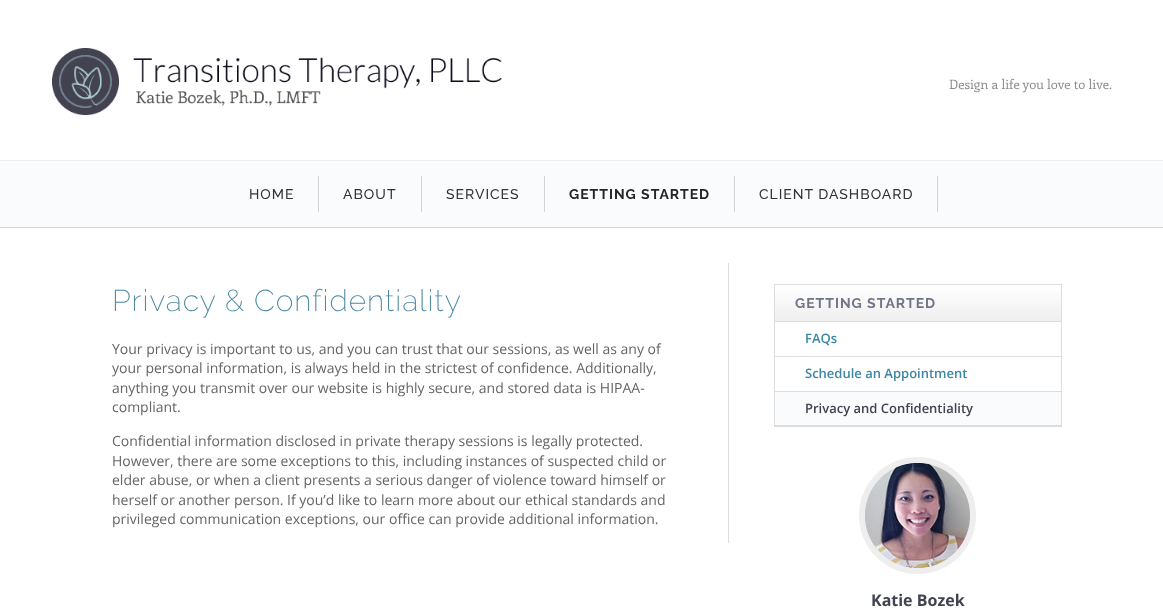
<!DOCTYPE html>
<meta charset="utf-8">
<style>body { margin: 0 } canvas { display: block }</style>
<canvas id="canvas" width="1163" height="615"></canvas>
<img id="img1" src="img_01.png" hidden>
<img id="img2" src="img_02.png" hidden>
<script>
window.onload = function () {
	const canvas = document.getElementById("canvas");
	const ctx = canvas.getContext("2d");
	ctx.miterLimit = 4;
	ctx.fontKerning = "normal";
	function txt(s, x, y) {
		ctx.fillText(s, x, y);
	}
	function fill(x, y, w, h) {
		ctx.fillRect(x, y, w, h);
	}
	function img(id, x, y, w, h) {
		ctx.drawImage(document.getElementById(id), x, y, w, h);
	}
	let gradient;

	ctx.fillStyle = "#FFFFFF";
	fill(0, 0, 1163, 615);
	img("img1", 52, 48, 450, 67);
	ctx.fillStyle = "#FAFBFC";
	fill(0, 161, 1163, 66);
	ctx.fillStyle = "#EEEEEE";
	fill(0, 160, 1163, 1);
	ctx.fillStyle = "#D5D5D5";
	fill(0, 227, 1163, 1);
	ctx.fillStyle = "#D4D4D4";
	fill(318, 176, 1, 36);
	fill(421, 176, 1, 36);
	fill(544, 176, 1, 36);
	fill(734, 176, 1, 36);
	fill(937, 176, 1, 36);
	ctx.fillStyle = "#DDDDDD";
	fill(728, 263, 1, 280);
	ctx.strokeStyle = "#DDDDDD";
	ctx.strokeRect(774.5, 284.5, 287, 142);
	gradient = ctx.createLinearGradient(918, 285, 918, 321);
	gradient.addColorStop(0, "#FFFFFF");
	gradient.addColorStop(1, "#EFEFEF");
	ctx.fillStyle = gradient;
	fill(775, 291, 286, 30);
	ctx.fillStyle = "#DDDDDD";
	fill(775, 321, 286, 1);
	fill(775, 356, 286, 1);
	fill(775, 391, 286, 1);
	ctx.fillStyle = "#FAFBFC";
	fill(775, 392, 286, 33);
	ctx.fillStyle = "#DDDDDD";
	fill(775, 425, 286, 1);
	img("img2", 859, 457, 117, 117);
	ctx.font = "13px Enriqueta";
	ctx.fillStyle = "#8C8C8C";
	txt("Design a life you love to live.", 949, 89);
	ctx.letterSpacing = "1px";
	ctx.font = "500 14px Raleway";
	ctx.fillStyle = "#333333";
	txt("HOME", 249, 199);
	txt("ABOUT", 343, 199);
	txt("SERVICES", 446, 199);
	ctx.font = "bold 14px Raleway";
	ctx.fillStyle = "#252525";
	txt("GETTING STARTED", 569, 199);
	ctx.font = "500 14px Raleway";
	ctx.fillStyle = "#333333";
	txt("CLIENT DASHBOARD", 759, 199);
	ctx.font = "200 30px Raleway";
	ctx.fillStyle = "#4987A3";
	txt("Privacy & Confidentiality", 112, 311);
	ctx.letterSpacing = "0px";
	ctx.font = "14px Open Sans";
	ctx.fillStyle = "#656565";
	txt("Your privacy is important to us, and you can trust that our sessions, as well as any of", 112, 354);
	txt("your personal information, is always held in the strictest of confidence. Additionally,", 112, 373);
	txt("anything you transmit over our website is highly secure, and stored data is HIPAA-", 112, 393);
	txt("compliant.", 112, 412);
	txt("Confidential information disclosed in private therapy sessions is legally protected.", 112, 446);
	txt("However, there are some exceptions to this, including instances of suspected child or", 112, 466);
	txt("elder abuse, or when a client presents a serious danger of violence toward himself or", 112, 485);
	txt("herself or another person. If you’d like to learn more about our ethical standards and", 112, 505);
	txt("privileged communication exceptions, our office can provide additional information.", 112, 524);
	ctx.letterSpacing = "1px";
	ctx.font = "bold 14px Raleway";
	ctx.fillStyle = "#717587";
	txt("GETTING STARTED", 795, 308);
	ctx.letterSpacing = "0px";
	ctx.font = "600 13px Open Sans";
	ctx.fillStyle = "#3B87A4";
	txt("FAQs", 805, 343);
	txt("Schedule an Appointment", 805, 378);
	ctx.fillStyle = "#414351";
	txt("Privacy and Confidentiality", 805, 413);
	ctx.font = "bold 16px Open Sans";
	txt("Katie Bozek", 871, 606);
};
</script>
